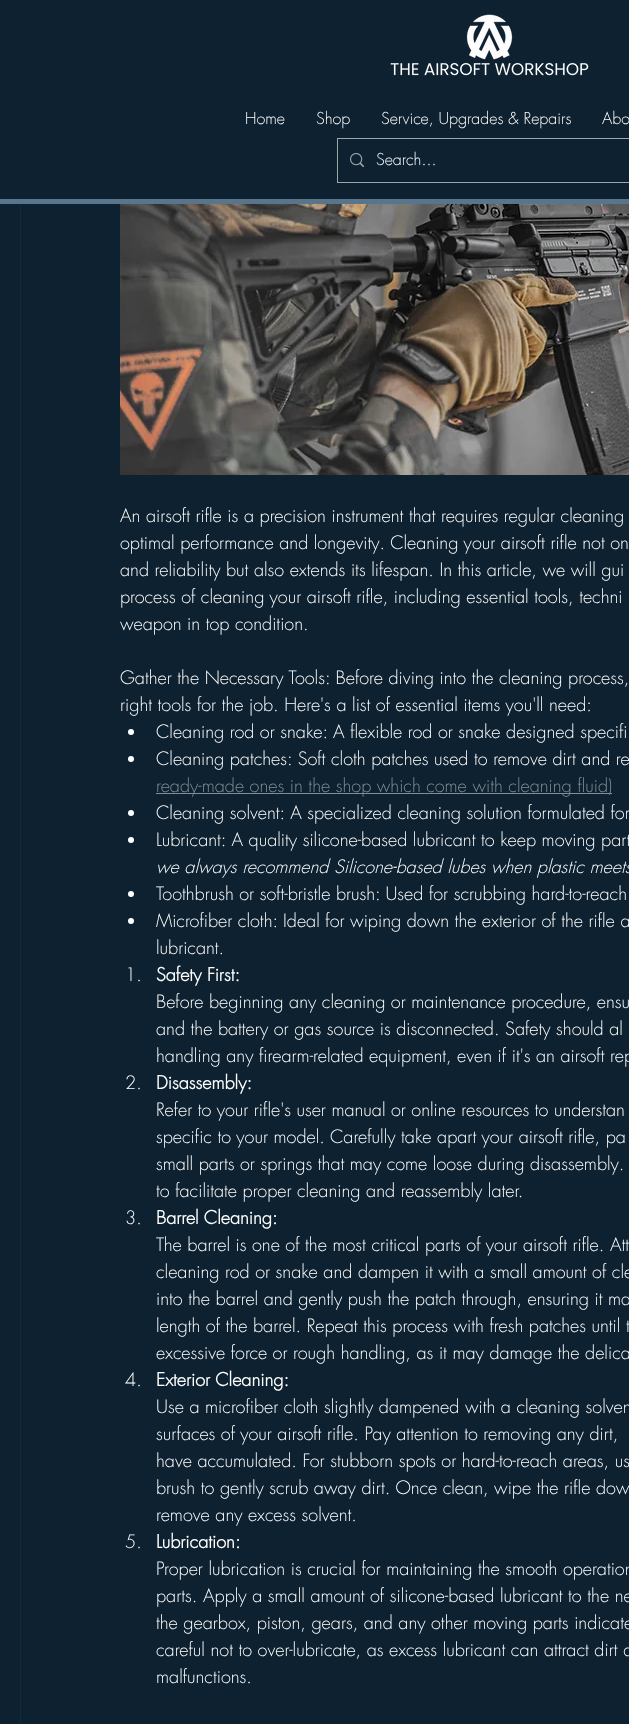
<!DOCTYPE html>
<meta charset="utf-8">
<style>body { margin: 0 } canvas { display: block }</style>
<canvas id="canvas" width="629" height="1724"></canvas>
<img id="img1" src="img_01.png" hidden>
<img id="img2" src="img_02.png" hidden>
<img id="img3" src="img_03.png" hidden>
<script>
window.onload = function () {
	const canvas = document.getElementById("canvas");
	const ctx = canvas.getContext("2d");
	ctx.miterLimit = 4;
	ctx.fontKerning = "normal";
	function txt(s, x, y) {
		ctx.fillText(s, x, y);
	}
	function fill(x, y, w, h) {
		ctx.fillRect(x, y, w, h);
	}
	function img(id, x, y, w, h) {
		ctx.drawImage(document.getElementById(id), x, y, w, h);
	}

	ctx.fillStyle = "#0D2130";
	fill(0, 0, 629, 1724);
	ctx.strokeStyle = "#0E2B41";
	ctx.strokeRect(20.5, -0.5, 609, 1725);
	fill(20, 0, 1, 199);
	ctx.fillStyle = "#58758C";
	fill(0, 199, 629, 5);
	img("img1", 390, 14, 199, 62);
	ctx.strokeStyle = "#9EA6AC";
	ctx.strokeRect(337.5, 138.5, 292, 44);
	img("img2", 350, 153, 14, 14);
	img("img3", 120, 204, 509, 271);
	ctx.fillStyle = "#FFFFFF";
	ctx.beginPath();
	ctx.arc(131, 732, 3, 0, Math.PI * 2);
	ctx.fill();
	ctx.beginPath();
	ctx.arc(131, 759, 3, 0, Math.PI * 2);
	ctx.fill();
	ctx.fillStyle = "#808F95";
	fill(156, 793, 456, 1);
	ctx.fillStyle = "#FFFFFF";
	ctx.beginPath();
	ctx.arc(131, 813, 3, 0, Math.PI * 2);
	ctx.fill();
	ctx.beginPath();
	ctx.arc(131, 840, 3, 0, Math.PI * 2);
	ctx.fill();
	ctx.beginPath();
	ctx.arc(131, 894, 3, 0, Math.PI * 2);
	ctx.fill();
	ctx.beginPath();
	ctx.arc(131, 921, 3, 0, Math.PI * 2);
	ctx.fill();
	ctx.font = "300 16px futura";
	txt("Home", 245, 124);
	txt("Shop", 316, 124);
	txt("Service, Upgrades & Repairs", 381, 124);
	txt("Abo", 602, 124);
	txt("Search...", 376, 165);
	ctx.font = "300 18px futura";
	txt("An airsoft rifle is a precision instrument that requires regular cleaning", 120, 522);
	txt("optimal performance and longevity. Cleaning your airsoft rifle not on", 120, 549);
	txt("and reliability but also extends its lifespan. In this article, we will gui", 120, 576);
	txt("process of cleaning your airsoft rifle, including essential tools, techni", 120, 603);
	txt("weapon in top condition.", 120, 630);
	txt("Gather the Necessary Tools: Before diving into the cleaning process,", 120, 684);
	txt("right tools for the job. Here's a list of essential items you'll need:", 120, 711);
	txt("Cleaning rod or snake: A flexible rod or snake designed specifi", 156, 738);
	txt("Cleaning patches: Soft cloth patches used to remove dirt and re", 156, 765);
	ctx.fillStyle = "#808F95";
	txt("ready-made ones in the shop which come with cleaning fluid)", 156, 792);
	ctx.fillStyle = "#FFFFFF";
	txt("Cleaning solvent: A specialized cleaning solution formulated for", 156, 819);
	txt("Lubricant: A quality silicone-based lubricant to keep moving part", 156, 846);
	ctx.font = "italic 300 18px futura";
	txt("we always recommend Silicone-based lubes when plastic meets", 156, 873);
	ctx.font = "300 18px futura";
	txt("Toothbrush or soft-bristle brush: Used for scrubbing hard-to-reach", 156, 900);
	txt("Microfiber cloth: Ideal for wiping down the exterior of the rifle a", 156, 927);
	txt("lubricant.", 156, 954);
	txt("1.", 125, 981);
	ctx.font = "bold 18px futura";
	txt("Safety First:", 156, 981);
	ctx.font = "300 18px futura";
	txt("Before beginning any cleaning or maintenance procedure, ensu", 156, 1008);
	txt("and the battery or gas source is disconnected. Safety should al", 156, 1035);
	txt("handling any firearm-related equipment, even if it's an airsoft rep", 156, 1062);
	txt("2.", 125, 1089);
	ctx.font = "bold 18px futura";
	txt("Disassembly:", 156, 1089);
	ctx.font = "300 18px futura";
	txt("Refer to your rifle's user manual or online resources to understan", 156, 1116);
	txt("specific to your model. Carefully take apart your airsoft rifle, pa", 156, 1143);
	txt("small parts or springs that may come loose during disassembly.", 156, 1170);
	txt("to facilitate proper cleaning and reassembly later.", 156, 1197);
	txt("3.", 125, 1224);
	ctx.font = "bold 18px futura";
	txt("Barrel Cleaning:", 156, 1224);
	ctx.font = "300 18px futura";
	txt("The barrel is one of the most critical parts of your airsoft rifle. Att", 156, 1251);
	txt("cleaning rod or snake and dampen it with a small amount of cle", 156, 1278);
	txt("into the barrel and gently push the patch through, ensuring it ma", 156, 1305);
	txt("length of the barrel. Repeat this process with fresh patches until t", 156, 1332);
	txt("excessive force or rough handling, as it may damage the delica", 156, 1359);
	txt("4.", 125, 1386);
	ctx.font = "bold 18px futura";
	txt("Exterior Cleaning:", 156, 1386);
	ctx.font = "300 18px futura";
	txt("Use a microfiber cloth slightly dampened with a cleaning solven", 156, 1413);
	txt("surfaces of your airsoft rifle. Pay attention to removing any dirt,", 156, 1440);
	txt("have accumulated. For stubborn spots or hard-to-reach areas, us", 156, 1467);
	txt("brush to gently scrub away dirt. Once clean, wipe the rifle dow", 156, 1494);
	txt("remove any excess solvent.", 156, 1521);
	txt("5.", 125, 1548);
	ctx.font = "bold 18px futura";
	txt("Lubrication:", 156, 1548);
	ctx.font = "300 18px futura";
	txt("Proper lubrication is crucial for maintaining the smooth operation", 156, 1575);
	txt("parts. Apply a small amount of silicone-based lubricant to the ne", 156, 1602);
	txt("the gearbox, piston, gears, and any other moving parts indicate", 156, 1629);
	txt("careful not to over-lubricate, as excess lubricant can attract dirt a", 156, 1656);
	txt("malfunctions.", 156, 1683);
};
</script>
